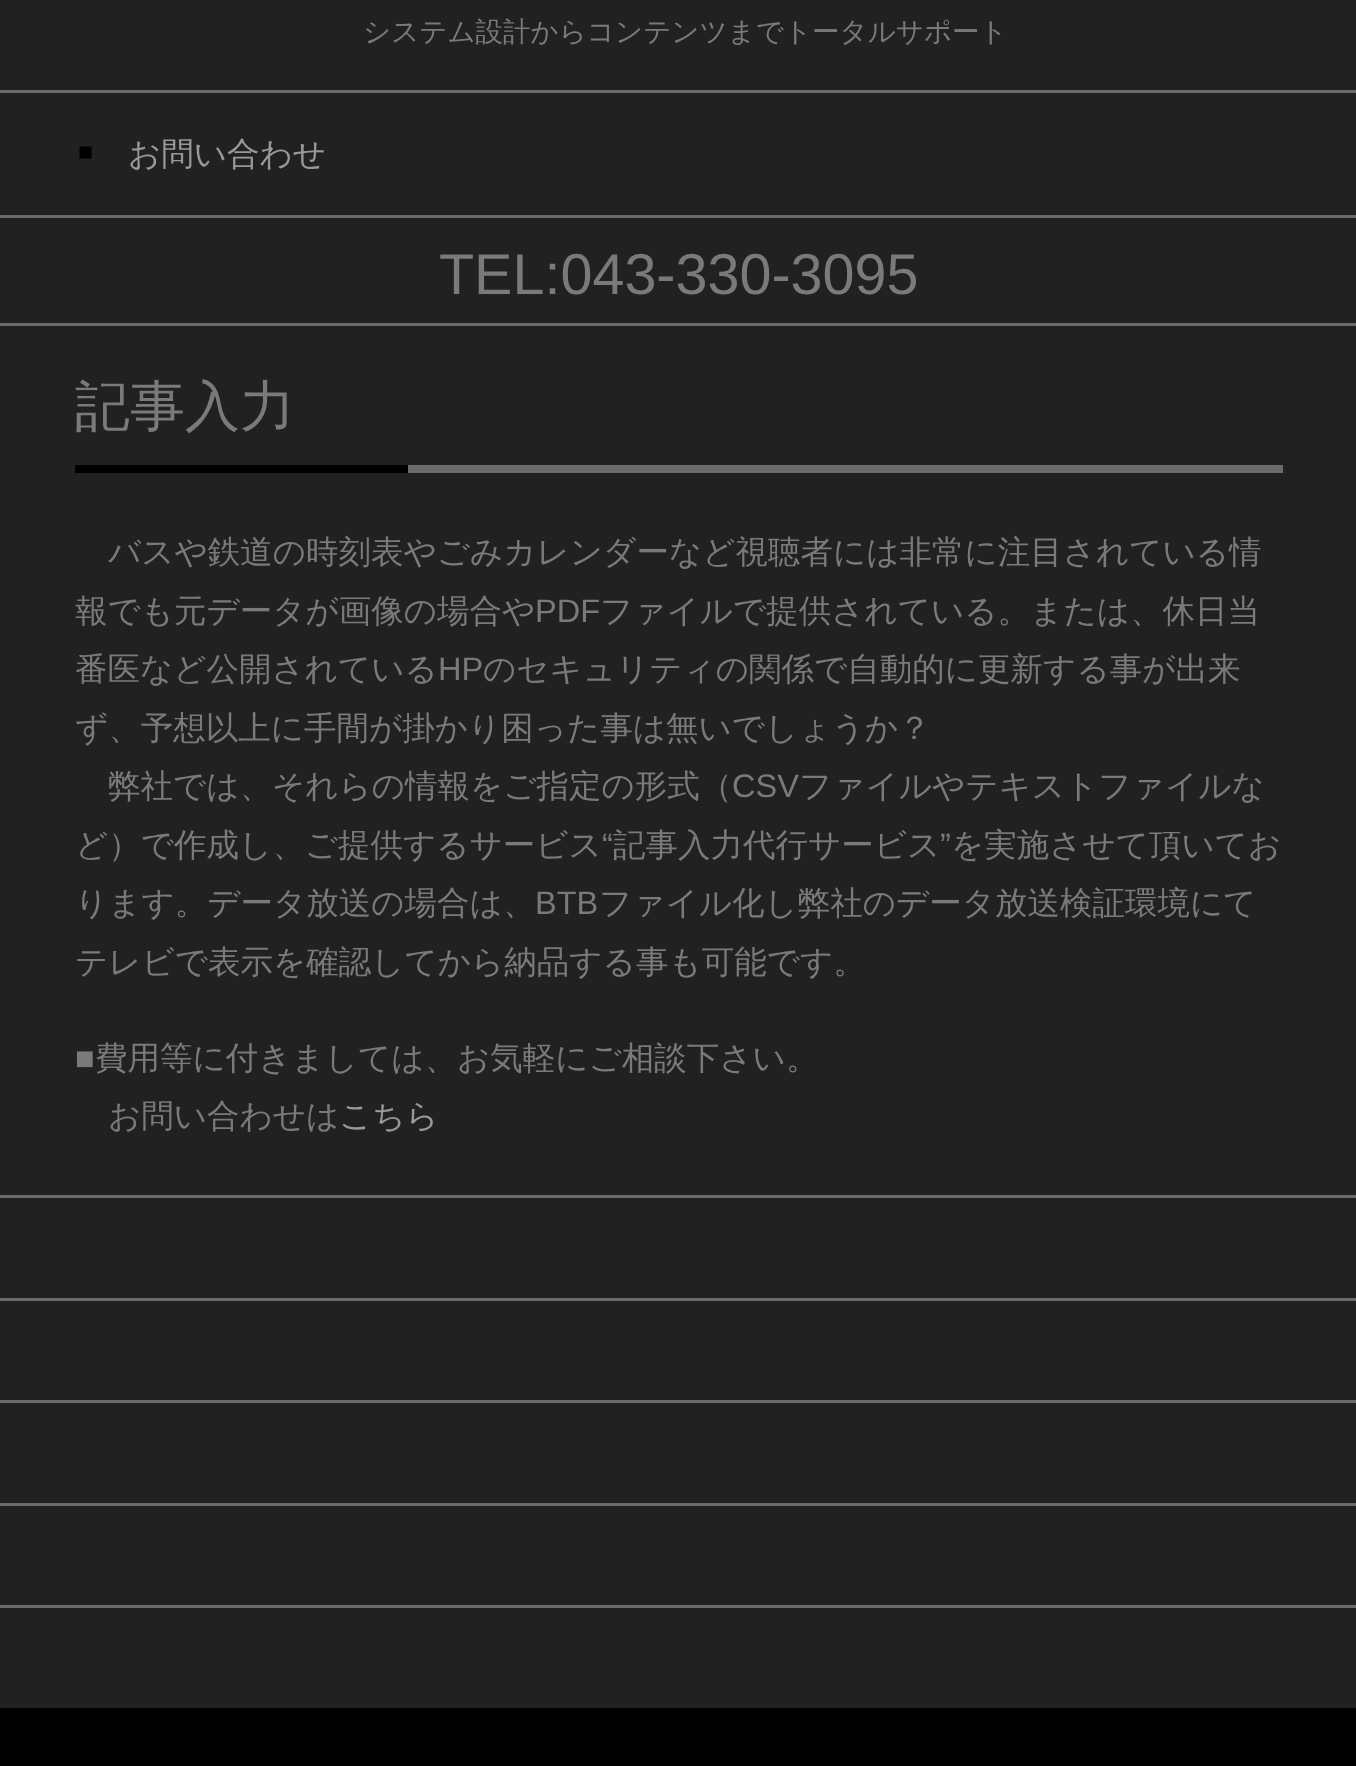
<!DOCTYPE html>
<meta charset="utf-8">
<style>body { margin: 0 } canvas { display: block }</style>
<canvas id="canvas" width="1356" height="1766"></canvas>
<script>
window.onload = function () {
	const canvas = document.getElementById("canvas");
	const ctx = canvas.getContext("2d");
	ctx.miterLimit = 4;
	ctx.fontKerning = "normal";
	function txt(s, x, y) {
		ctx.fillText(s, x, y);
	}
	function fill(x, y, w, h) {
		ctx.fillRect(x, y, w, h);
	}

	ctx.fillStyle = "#212121";
	fill(0, 0, 1356, 1766);
	ctx.fillStyle = "#6B6B6B";
	fill(0, 90, 1356, 3);
	fill(0, 215, 1356, 3);
	fill(0, 323, 1356, 3);
	fill(408, 465, 875, 8);
	ctx.fillStyle = "#000000";
	fill(75, 465, 333, 8);
	ctx.fillStyle = "#6B6B6B";
	fill(0, 1195, 1356, 3);
	fill(0, 1298, 1356, 3);
	fill(0, 1400, 1356, 3);
	fill(0, 1503, 1356, 3);
	fill(0, 1605, 1356, 3);
	ctx.fillStyle = "#000000";
	fill(0, 1708, 1356, 58);
	ctx.font = "500 27.5px WenQuanYi Zen Hei";
	ctx.fillStyle = "#7A7A7A";
	txt("システム設計からコンテンツまでトータルサポート", 363, 41);
	ctx.font = "25px Liberation Sans";
	ctx.fillStyle = "#000000";
	txt("■", 78, 160);
	ctx.font = "500 32.5px WenQuanYi Zen Hei";
	ctx.fillStyle = "#999999";
	txt("お問い合わせ", 128, 165);
	ctx.font = "57.5px Liberation Sans";
	ctx.fillStyle = "#7A7A7A";
	txt("TEL:043-330-3095", 439, 294);
	ctx.font = "500 55px WenQuanYi Zen Hei";
	txt("記事入力", 75, 425);
	ctx.font = "500 32.5px WenQuanYi Zen Hei";
	txt("バスや鉄道の時刻表やごみカレンダーなど視聴者には非常に注目されている情", 108, 563);
	txt("報でも元データが画像の場合や", 75, 622);
	ctx.font = "32.5px Liberation Sans";
	txt("PDF", 535, 622);
	ctx.font = "500 32.5px WenQuanYi Zen Hei";
	txt("ファイルで提供されている。または、休日当", 600, 622);
	txt("番医など公開されている", 75, 680);
	ctx.font = "32.5px Liberation Sans";
	txt("HP", 438, 680);
	ctx.font = "500 32.5px WenQuanYi Zen Hei";
	txt("のセキュリティの関係で自動的に更新する事が出来", 483, 680);
	txt("ず、予想以上に手間が掛かり困った事は無いでしょうか？", 75, 739);
	txt("弊社では、それらの情報をご指定の形式（", 108, 797);
	ctx.font = "32.5px Liberation Sans";
	txt("CSV", 732, 797);
	ctx.font = "500 32.5px WenQuanYi Zen Hei";
	txt("ファイルやテキストファイルな", 799, 797);
	txt("ど）で作成し、ご提供するサービス", 75, 856);
	ctx.font = "32.5px Liberation Sans";
	txt("“", 602, 856);
	ctx.font = "500 32.5px WenQuanYi Zen Hei";
	txt("記事入力代行サービス", 613, 856);
	ctx.font = "32.5px Liberation Sans";
	txt("”", 940, 856);
	ctx.font = "500 32.5px WenQuanYi Zen Hei";
	txt("を実施させて頂いてお", 951, 856);
	txt("ります。データ放送の場合は、", 75, 914);
	ctx.font = "32.5px Liberation Sans";
	txt("BTB", 535, 914);
	ctx.font = "500 32.5px WenQuanYi Zen Hei";
	txt("ファイル化し弊社のデータ放送検証環境にて", 599, 914);
	txt("テレビで表示を確認してから納品する事も可能です。", 75, 973);
	ctx.font = "32.5px Liberation Sans";
	txt("■", 75, 1069);
	ctx.font = "500 32.5px WenQuanYi Zen Hei";
	txt("費用等に付きましては、お気軽にご相談下さい。", 95, 1069);
	txt("お問い合わせは", 108, 1127);
	ctx.fillStyle = "#999999";
	txt("こちら", 339, 1127);
};
</script>
